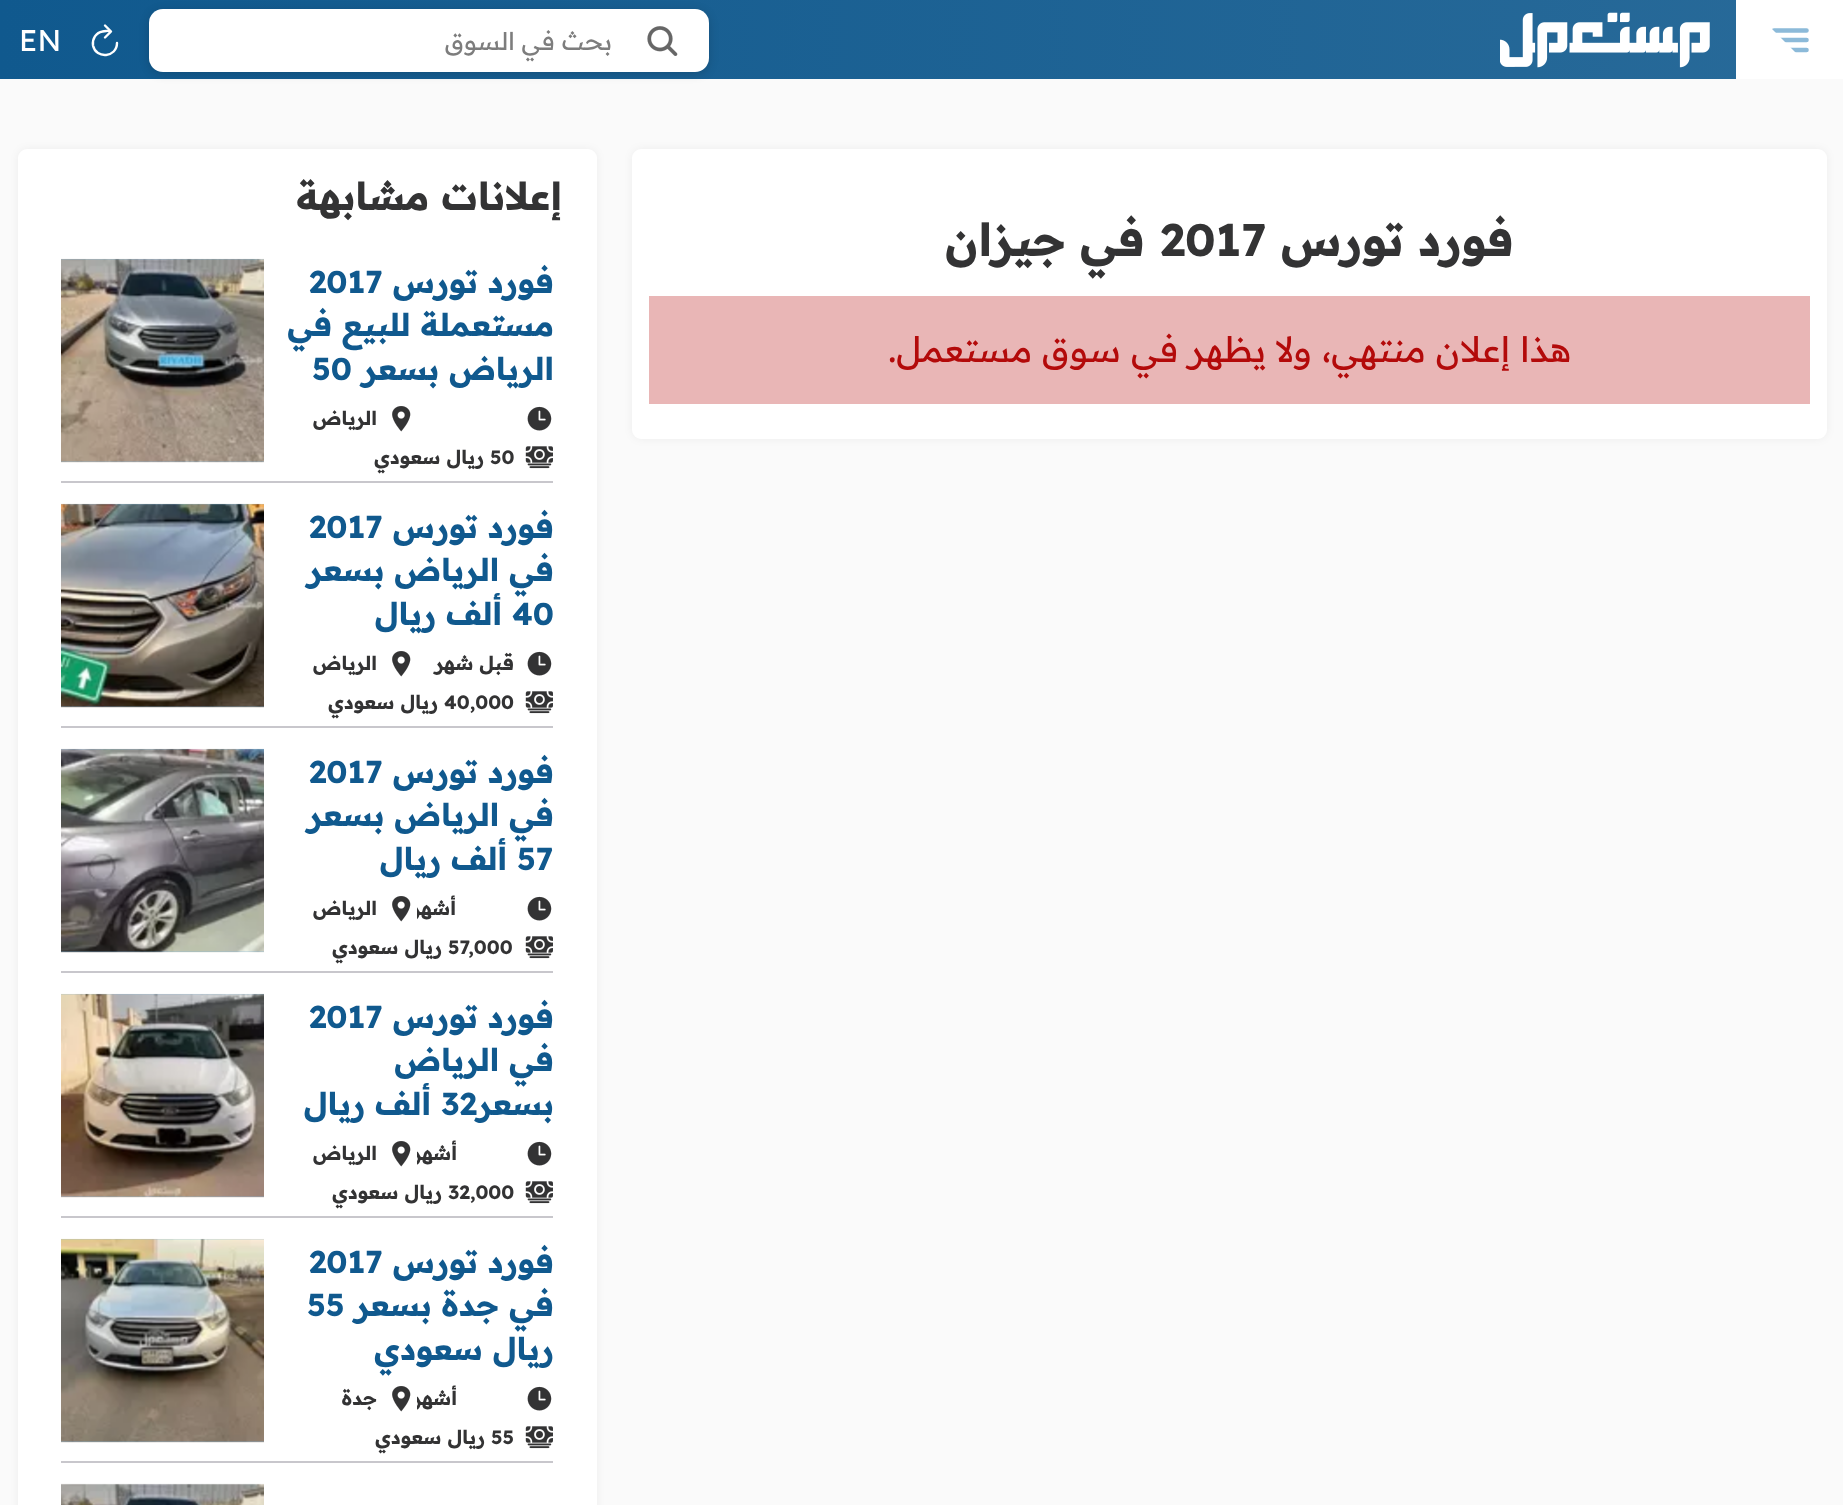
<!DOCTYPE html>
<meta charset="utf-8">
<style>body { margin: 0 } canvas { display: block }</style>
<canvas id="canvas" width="1843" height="1505"></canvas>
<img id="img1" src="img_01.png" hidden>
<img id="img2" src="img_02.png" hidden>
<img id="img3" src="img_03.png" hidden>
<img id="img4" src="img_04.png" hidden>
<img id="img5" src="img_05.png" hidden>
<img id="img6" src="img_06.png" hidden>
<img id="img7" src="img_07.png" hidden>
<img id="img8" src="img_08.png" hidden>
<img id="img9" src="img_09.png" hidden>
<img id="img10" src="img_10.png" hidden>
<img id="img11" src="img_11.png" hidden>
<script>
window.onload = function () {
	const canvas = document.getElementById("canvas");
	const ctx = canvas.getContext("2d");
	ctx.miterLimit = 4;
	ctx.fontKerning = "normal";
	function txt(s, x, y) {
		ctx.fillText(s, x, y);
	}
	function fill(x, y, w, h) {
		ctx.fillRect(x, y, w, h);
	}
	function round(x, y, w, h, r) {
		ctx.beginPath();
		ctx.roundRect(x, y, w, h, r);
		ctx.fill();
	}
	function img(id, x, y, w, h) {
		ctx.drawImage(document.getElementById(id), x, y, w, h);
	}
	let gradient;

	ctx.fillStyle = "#FAFAFA";
	fill(0, 0, 1843, 1505);
	gradient = ctx.createLinearGradient(0, 39, 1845, 39);
	gradient.addColorStop(0, "#10598E");
	gradient.addColorStop(1, "#286A99");
	ctx.fillStyle = gradient;
	fill(0, 0, 1736, 79);
	ctx.fillStyle = "#FFFFFF";
	fill(1736, 0, 107, 79);
	ctx.beginPath();
	ctx.moveTo(1774, 30.5);
	ctx.lineTo(1806.5, 30.5);
	ctx.moveTo(1774, 40);
	ctx.lineTo(1806.5, 40);
	ctx.moveTo(1774, 50);
	ctx.lineTo(1806.5, 50);
	ctx.strokeStyle = "#8CBAD9";
	ctx.lineWidth = 4.6;
	ctx.lineCap = "round";
	ctx.stroke();
	ctx.save();
	ctx.beginPath();
	ctx.rect(1766, 16, 49, 49);
	ctx.clip();
	ctx.beginPath();
	ctx.moveTo(1808, 65);
	ctx.lineTo(1755, 65);
	ctx.lineTo(1755, 12);
	ctx.closePath();
	ctx.fill();
	ctx.restore();
	img("img1", 1500, 12, 210, 56);
	ctx.fillStyle = "rgba(0, 0, 0, 0.16)";
	ctx.filter = "blur(5px)";
	ctx.beginPath();
	ctx.roundRect(149, 11, 560, 63, 14);
	ctx.fill();
	ctx.filter = "none";
	ctx.fillStyle = "#FFFFFF";
	round(149, 9, 560, 63, 14);
	img("img2", 647, 26, 31, 30);
	ctx.beginPath();
	ctx.moveTo(110, 32);
	ctx.lineTo(110, 31.5);
	ctx.bezierCurveTo(108.5, 30.5, 104, 31, 102.5, 31.5);
	ctx.bezierCurveTo(96, 32.5, 92, 39, 93, 45.5);
	ctx.bezierCurveTo(96, 59.5, 117, 57.5, 117, 43);
	ctx.strokeStyle = "#FFFFFF";
	ctx.lineWidth = 2.4;
	ctx.stroke();
	ctx.beginPath();
	ctx.moveTo(105, 25.5);
	ctx.lineTo(111, 31.5);
	ctx.lineTo(105, 37.5);
	ctx.lineJoin = "round";
	ctx.stroke();
	ctx.fillStyle = "rgba(0, 0, 0, 0.05)";
	ctx.filter = "blur(4.5px)";
	ctx.beginPath();
	ctx.roundRect(632, 149, 1195, 290, 9);
	ctx.fill();
	ctx.filter = "none";
	ctx.fillStyle = "#FFFFFF";
	round(632, 149, 1195, 290, 9);
	ctx.fillStyle = "#E9B6B6";
	fill(649, 296, 1161, 108);
	ctx.fillStyle = "rgba(0, 0, 0, 0.05)";
	ctx.filter = "blur(4.5px)";
	ctx.beginPath();
	ctx.roundRect(18, 149, 579, 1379, 9);
	ctx.fill();
	ctx.filter = "none";
	ctx.fillStyle = "#FFFFFF";
	ctx.beginPath();
	ctx.roundRect(18, 149, 579, 1356, [9, 9, 0, 0]);
	ctx.fill();
	ctx.fillStyle = "#C8C7CC";
	fill(61, 481, 492, 2);
	img("img3", 527, 406, 25, 25);
	img("img4", 392, 406, 19, 26);
	img("img5", 525, 446, 28, 23);
	ctx.fillStyle = "#8CBAD9";
	fill(61, 259, 203, 203);
	img("img6", 61, 258, 203, 205);
	ctx.fillStyle = "#C8C7CC";
	fill(61, 726, 492, 2);
	img("img3", 527, 651, 25, 25);
	img("img4", 392, 651, 19, 26);
	img("img5", 525, 691, 28, 23);
	ctx.fillStyle = "#8CBAD9";
	fill(61, 504, 203, 203);
	img("img7", 61, 503, 203, 205);
	ctx.fillStyle = "#C8C7CC";
	fill(61, 971, 492, 2);
	img("img3", 527, 896, 25, 25);
	img("img4", 392, 896, 19, 26);
	img("img5", 525, 936, 28, 23);
	ctx.fillStyle = "#8CBAD9";
	fill(61, 749, 203, 203);
	img("img8", 61, 748, 203, 205);
	ctx.fillStyle = "#C8C7CC";
	fill(61, 1216, 492, 2);
	img("img3", 527, 1141, 25, 25);
	img("img4", 392, 1141, 19, 26);
	img("img5", 525, 1181, 28, 23);
	ctx.fillStyle = "#8CBAD9";
	fill(61, 994, 203, 203);
	img("img9", 61, 993, 203, 205);
	ctx.fillStyle = "#C8C7CC";
	fill(61, 1461, 492, 2);
	img("img3", 527, 1386, 25, 25);
	img("img4", 392, 1386, 19, 26);
	img("img5", 525, 1426, 28, 23);
	ctx.fillStyle = "#8CBAD9";
	fill(61, 1239, 203, 203);
	img("img10", 61, 1238, 203, 205);
	img("img11", 61, 1483, 203, 22);
	ctx.direction = "rtl";
	ctx.font = "24.5px Readex Pro";
	ctx.fillStyle = "#7D7D7D";
	txt("بحث في السوق", 612, 50);
	ctx.direction = "ltr";
	ctx.font = "30px Readex Pro";
	ctx.fillStyle = "#FFFFFF";
	txt("EN", 19, 51);
	ctx.direction = "rtl";
	ctx.font = "bold 45.5px Readex Pro";
	ctx.fillStyle = "#333334";
	txt("فورد تورس", 1514, 256);
	ctx.direction = "ltr";
	txt("2017", 1160, 256);
	ctx.direction = "rtl";
	txt("في جيزان", 1145, 256);
	ctx.font = "35px Readex Pro";
	ctx.fillStyle = "#B30A0A";
	txt("هذا", 1571, 362);
	txt("إعلان منتهي،", 1510, 362);
	txt("ولا يظهر في", 1312, 362);
	txt("سوق مستعمل.", 1121, 362);
	ctx.font = "bold 38.5px Readex Pro";
	ctx.fillStyle = "#333334";
	txt("إعلانات مشابهة", 562, 210);
	ctx.font = "bold 31.5px Readex Pro";
	ctx.fillStyle = "#10598E";
	txt("فورد تورس", 554, 293);
	ctx.direction = "ltr";
	txt("2017", 309, 293);
	ctx.direction = "rtl";
	txt("مستعملة للبيع في", 554, 336);
	txt("الرياض بسعر", 554, 380);
	ctx.direction = "ltr";
	txt("50", 312, 380);
	ctx.direction = "rtl";
	ctx.font = "bold 19.25px Readex Pro";
	ctx.fillStyle = "#333334";
	txt("الرياض", 377, 425);
	ctx.direction = "ltr";
	txt("50", 490, 464);
	ctx.direction = "rtl";
	txt("ريال سعودي", 484, 464);
	ctx.font = "bold 31.5px Readex Pro";
	ctx.fillStyle = "#10598E";
	txt("فورد تورس", 554, 538);
	ctx.direction = "ltr";
	txt("2017", 309, 538);
	ctx.direction = "rtl";
	txt("في الرياض بسعر", 554, 581);
	ctx.direction = "ltr";
	txt("40", 512, 625);
	ctx.direction = "rtl";
	txt("ألف ريال", 502, 625);
	ctx.font = "bold 19.25px Readex Pro";
	ctx.fillStyle = "#333334";
	txt("قبل شهر", 514, 670);
	txt("الرياض", 377, 670);
	ctx.direction = "ltr";
	txt("40,000", 444, 709);
	ctx.direction = "rtl";
	txt("ريال سعودي", 438, 709);
	ctx.font = "bold 31.5px Readex Pro";
	ctx.fillStyle = "#10598E";
	txt("فورد تورس", 554, 783);
	ctx.direction = "ltr";
	txt("2017", 309, 783);
	ctx.direction = "rtl";
	txt("في الرياض بسعر", 554, 826);
	ctx.direction = "ltr";
	txt("57", 517, 870);
	ctx.direction = "rtl";
	txt("ألف ريال", 507, 870);
	ctx.save();
	ctx.beginPath();
	ctx.rect(417, 891, 99, 35);
	ctx.clip();
	ctx.font = "bold 19.25px Readex Pro";
	ctx.fillStyle = "#333334";
	txt("أشهر", 456, 915);
	ctx.restore();
	ctx.font = "bold 19.25px Readex Pro";
	ctx.fillStyle = "#333334";
	txt("الرياض", 377, 915);
	ctx.direction = "ltr";
	txt("57,000", 448, 954);
	ctx.direction = "rtl";
	txt("ريال سعودي", 442, 954);
	ctx.font = "bold 31.5px Readex Pro";
	ctx.fillStyle = "#10598E";
	txt("فورد تورس", 554, 1028);
	ctx.direction = "ltr";
	txt("2017", 309, 1028);
	ctx.direction = "rtl";
	txt("في الرياض", 554, 1071);
	ctx.direction = "ltr";
	txt("32", 441, 1115);
	ctx.direction = "rtl";
	txt("بسعر", 554, 1115);
	txt("ألف ريال", 431, 1115);
	ctx.save();
	ctx.beginPath();
	ctx.rect(417, 1136, 99, 35);
	ctx.clip();
	ctx.font = "bold 19.25px Readex Pro";
	ctx.fillStyle = "#333334";
	txt("أشهر", 457, 1160);
	ctx.restore();
	ctx.font = "bold 19.25px Readex Pro";
	ctx.fillStyle = "#333334";
	txt("الرياض", 377, 1160);
	ctx.direction = "ltr";
	txt("32,000", 448, 1199);
	ctx.direction = "rtl";
	txt("ريال سعودي", 442, 1199);
	ctx.font = "bold 31.5px Readex Pro";
	ctx.fillStyle = "#10598E";
	txt("فورد تورس", 554, 1273);
	ctx.direction = "ltr";
	txt("2017", 309, 1273);
	ctx.direction = "rtl";
	txt("في جدة بسعر", 554, 1316);
	ctx.direction = "ltr";
	txt("55", 307, 1316);
	ctx.direction = "rtl";
	txt("ريال سعودي", 554, 1360);
	ctx.save();
	ctx.beginPath();
	ctx.rect(417, 1381, 99, 35);
	ctx.clip();
	ctx.font = "bold 19.25px Readex Pro";
	ctx.fillStyle = "#333334";
	txt("أشهر", 457, 1405);
	ctx.restore();
	ctx.font = "bold 19.25px Readex Pro";
	ctx.fillStyle = "#333334";
	txt("جدة", 377, 1405);
	ctx.direction = "ltr";
	txt("55", 491, 1444);
	ctx.direction = "rtl";
	txt("ريال سعودي", 485, 1444);
};
</script>
